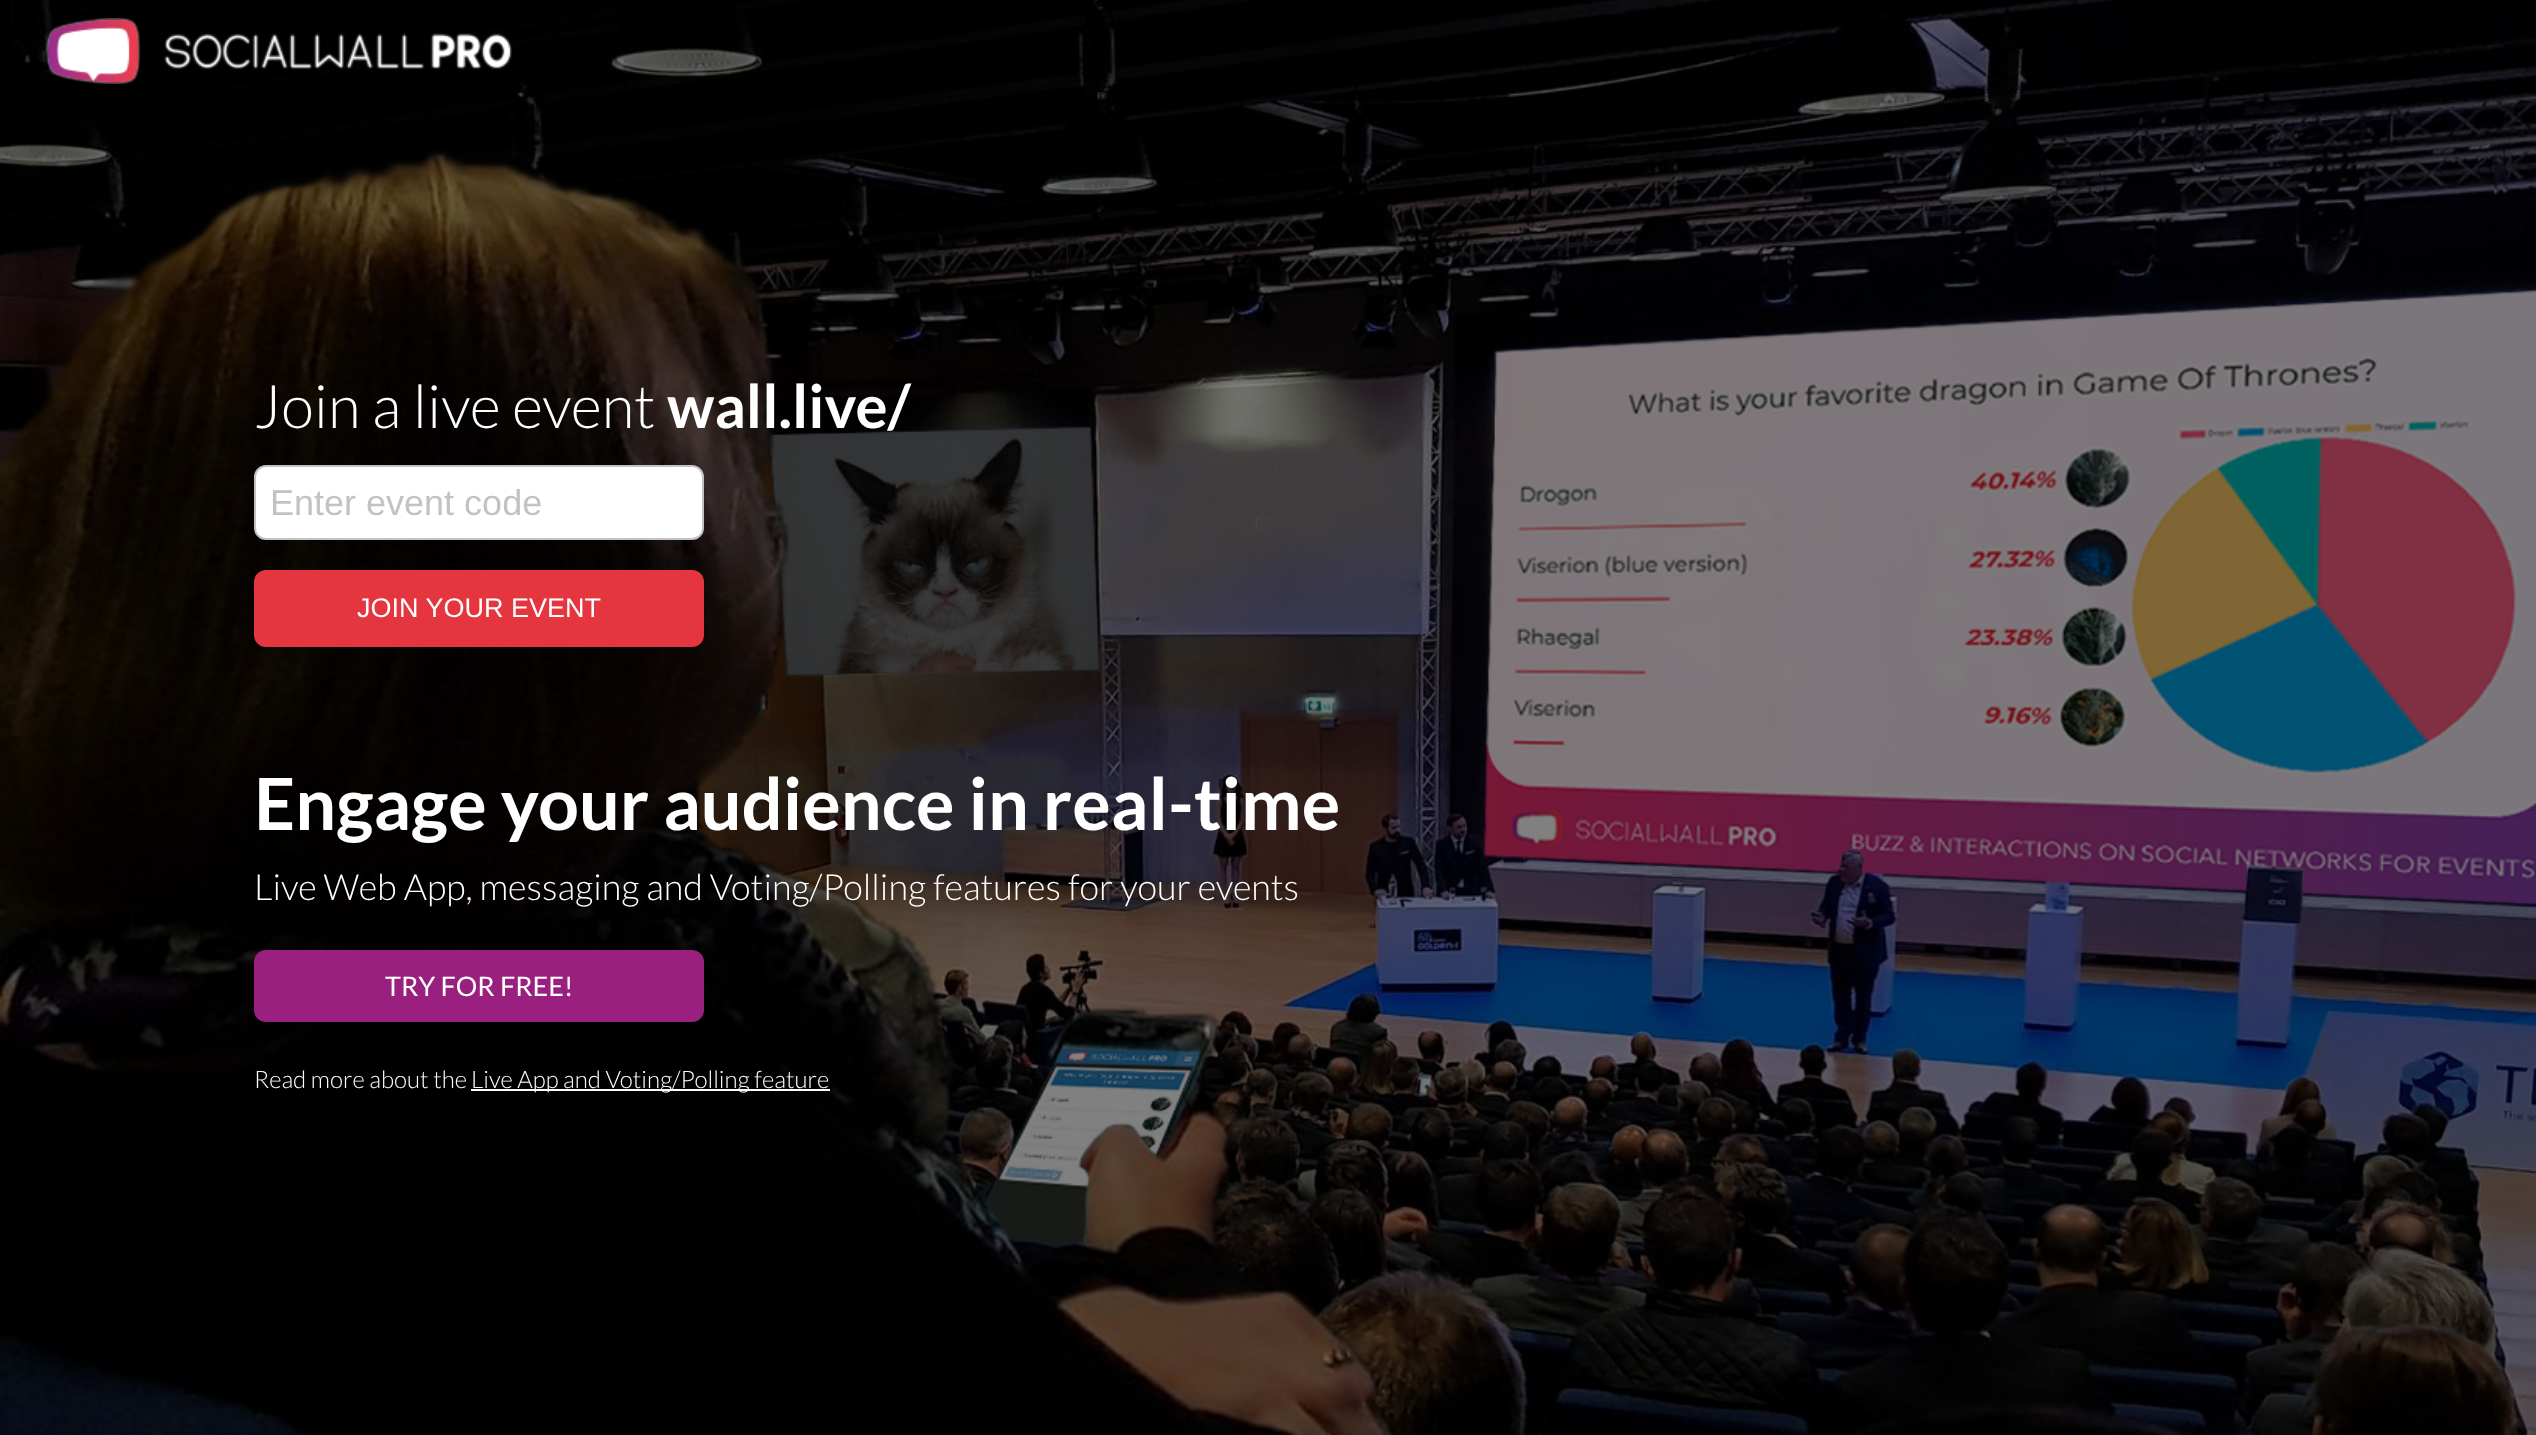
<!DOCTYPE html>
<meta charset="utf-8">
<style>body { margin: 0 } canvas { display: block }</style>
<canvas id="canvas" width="2536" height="1435"></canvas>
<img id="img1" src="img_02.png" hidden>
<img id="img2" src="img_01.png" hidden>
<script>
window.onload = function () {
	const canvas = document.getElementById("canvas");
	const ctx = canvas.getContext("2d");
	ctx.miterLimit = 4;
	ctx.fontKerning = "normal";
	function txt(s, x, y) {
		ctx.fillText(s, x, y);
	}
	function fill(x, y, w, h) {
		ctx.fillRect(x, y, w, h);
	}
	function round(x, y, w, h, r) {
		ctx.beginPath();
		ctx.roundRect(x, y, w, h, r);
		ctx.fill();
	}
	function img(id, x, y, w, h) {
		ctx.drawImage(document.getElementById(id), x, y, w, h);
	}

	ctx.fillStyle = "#FFFFFF";
	fill(0, 0, 2536, 1435);
	img("img1", 0, 0, 2536, 1435);
	img("img2", 46, 18, 466, 66);
	ctx.beginPath();
	ctx.roundRect(255, 466, 448, 73, 11);
	ctx.fill();
	ctx.strokeStyle = "#C2C2C2";
	ctx.lineWidth = 2;
	ctx.stroke();
	ctx.fillStyle = "#E5353F";
	round(254, 570, 450, 77, 12);
	ctx.fillStyle = "#99207E";
	round(254, 950, 450, 72, 12);
	ctx.fillStyle = "#FFFFFF";
	fill(471, 1089, 359, 2);
	ctx.font = "300 60px Lato";
	txt("Join a live event", 254, 428);
	ctx.font = "bold 60px Lato";
	txt("wall.live/", 667, 428);
	ctx.font = "36px Liberation Sans";
	ctx.fillStyle = "#C2C2C2";
	txt("Enter event code", 270, 515);
	ctx.font = "27px Liberation Sans";
	ctx.fillStyle = "#FFFFFF";
	txt("JOIN YOUR EVENT", 357, 617);
	ctx.font = "bold 72px Lato";
	txt("Engage your audience in real-time", 254, 830);
	ctx.font = "300 36px Lato";
	txt("Live Web App, messaging and Voting/Polling features for your events", 254, 900);
	ctx.font = "27px Lato";
	txt("TRY FOR FREE!", 385, 996);
	ctx.font = "300 24px Lato";
	txt("Read more about the", 254, 1088);
	txt("Live App and Voting/Polling feature", 471, 1088);
};
</script>
